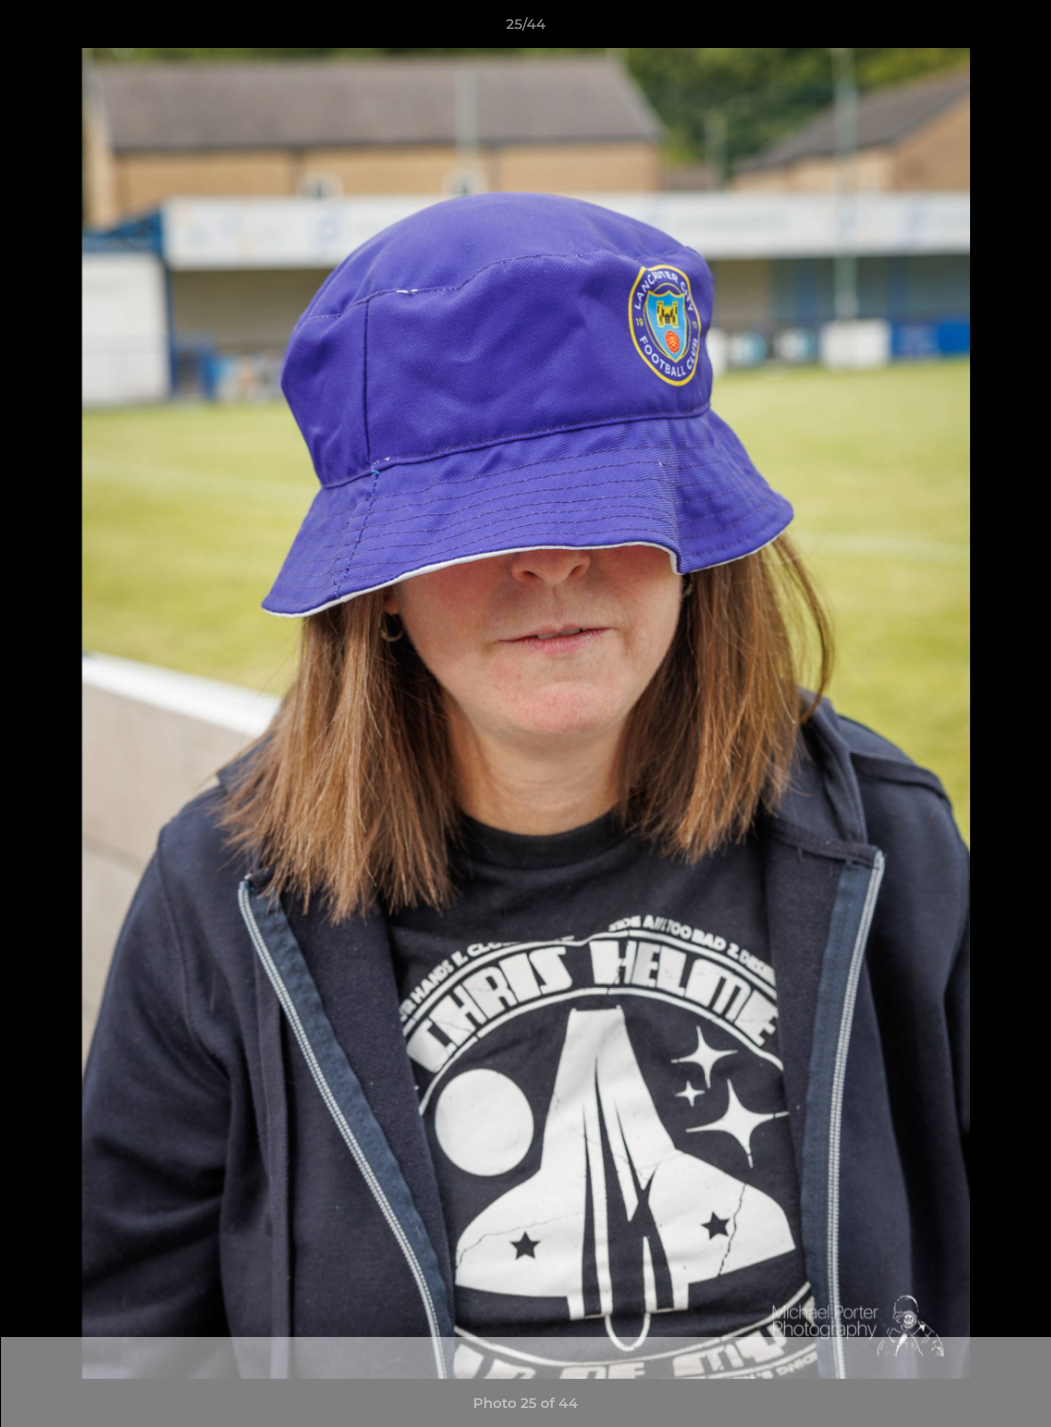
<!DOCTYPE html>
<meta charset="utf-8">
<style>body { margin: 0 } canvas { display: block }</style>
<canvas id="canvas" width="1051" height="1427"></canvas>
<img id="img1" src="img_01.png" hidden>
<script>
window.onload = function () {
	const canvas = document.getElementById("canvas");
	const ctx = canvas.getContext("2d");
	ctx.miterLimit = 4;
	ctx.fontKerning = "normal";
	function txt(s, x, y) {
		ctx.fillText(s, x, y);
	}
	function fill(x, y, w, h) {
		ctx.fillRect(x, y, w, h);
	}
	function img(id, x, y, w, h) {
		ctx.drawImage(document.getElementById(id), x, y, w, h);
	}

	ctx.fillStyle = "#000000";
	fill(0, 0, 1051, 1427);
	img("img1", 81, 48, 890, 1331);
	ctx.font = "600 14px Montserrat";
	ctx.fillStyle = "#808080";
	txt("25/44", 506, 29);
	txt("Photo 25 of 44", 473, 1408);
	ctx.fillStyle = "rgba(255, 255, 255, 0.5)";
	fill(1, 1337, 1050, 90);
};
</script>
